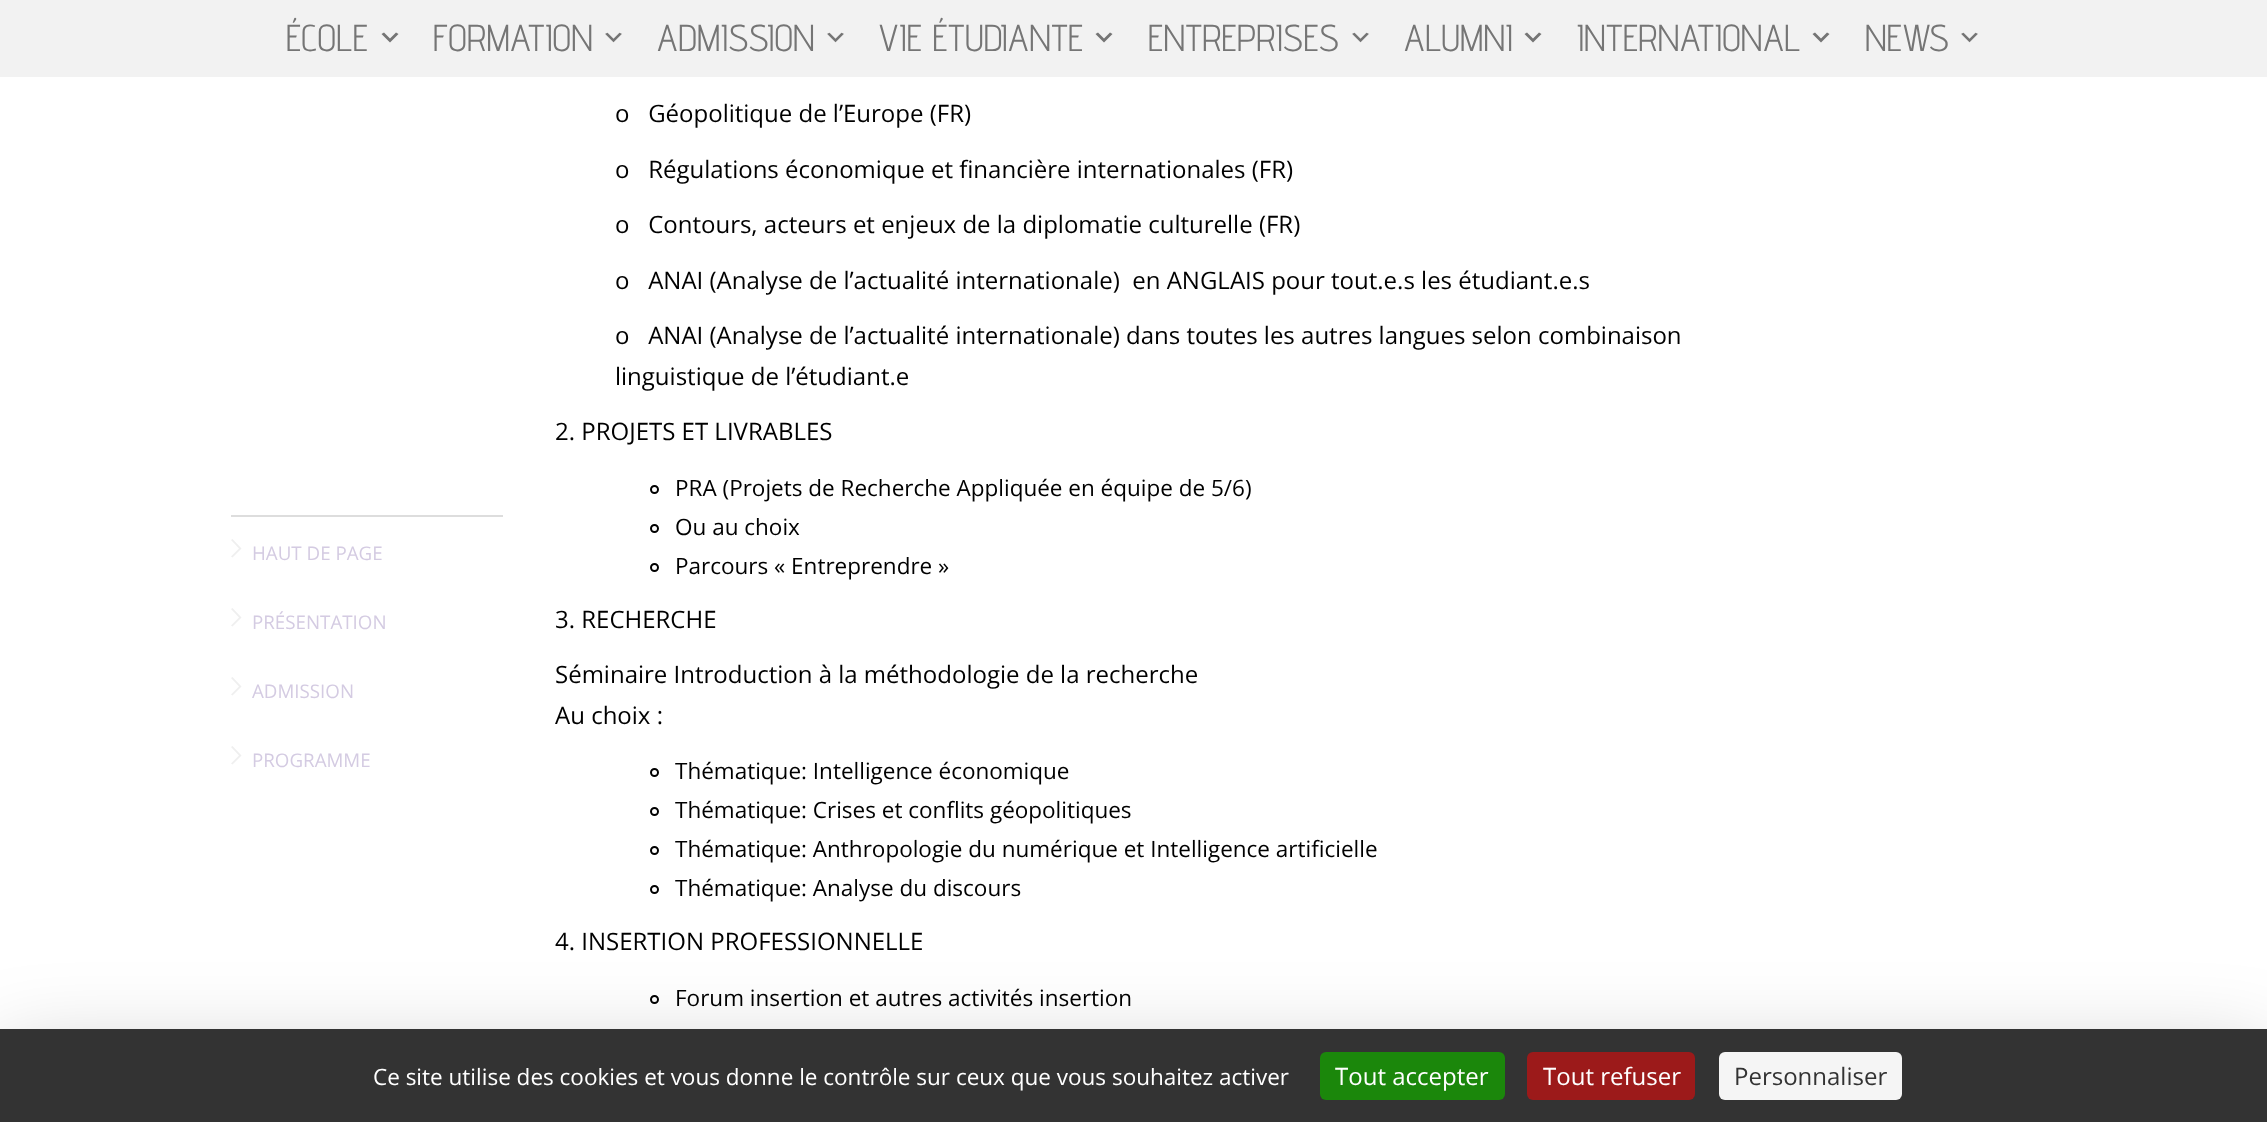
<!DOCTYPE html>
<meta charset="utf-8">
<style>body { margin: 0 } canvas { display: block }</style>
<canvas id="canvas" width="2267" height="1122"></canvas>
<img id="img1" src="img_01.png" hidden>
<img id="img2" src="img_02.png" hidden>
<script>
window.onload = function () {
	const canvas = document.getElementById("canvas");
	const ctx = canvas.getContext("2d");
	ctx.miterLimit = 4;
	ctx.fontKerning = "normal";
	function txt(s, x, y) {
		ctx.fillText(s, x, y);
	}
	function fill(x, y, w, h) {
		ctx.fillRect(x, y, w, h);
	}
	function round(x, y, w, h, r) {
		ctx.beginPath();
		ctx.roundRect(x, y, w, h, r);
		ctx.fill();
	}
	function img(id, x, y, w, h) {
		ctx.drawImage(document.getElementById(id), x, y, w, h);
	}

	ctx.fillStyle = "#FFFFFF";
	fill(0, 0, 2267, 1122);
	ctx.fillStyle = "#F2F2F2";
	fill(0, 0, 2267, 77);
	ctx.fillStyle = "#757575";
	ctx.beginPath();
	ctx.moveTo(384, 32.5);
	ctx.lineTo(390, 38.5);
	ctx.lineTo(396, 32.5);
	ctx.lineTo(398.5, 34);
	ctx.lineTo(390, 42.5);
	ctx.lineTo(381.5, 34);
	ctx.closePath();
	ctx.fill();
	img("img1", 605, 32, 17, 11);
	img("img1", 827, 32, 17, 11);
	ctx.beginPath();
	ctx.moveTo(1098, 32.5);
	ctx.lineTo(1104, 38.5);
	ctx.lineTo(1110, 32.5);
	ctx.lineTo(1112.5, 34);
	ctx.lineTo(1104, 42.5);
	ctx.lineTo(1095.5, 34);
	ctx.closePath();
	ctx.fill();
	img("img2", 1352, 32, 17, 11);
	ctx.beginPath();
	ctx.moveTo(1527, 32.5);
	ctx.lineTo(1533, 38.5);
	ctx.lineTo(1539, 32.5);
	ctx.lineTo(1541.5, 34);
	ctx.lineTo(1533, 42.5);
	ctx.lineTo(1524.5, 34);
	ctx.closePath();
	ctx.fill();
	ctx.beginPath();
	ctx.moveTo(1815, 32.5);
	ctx.lineTo(1821, 38.5);
	ctx.lineTo(1827, 32.5);
	ctx.lineTo(1829.5, 34);
	ctx.lineTo(1821, 42.5);
	ctx.lineTo(1812.5, 34);
	ctx.closePath();
	ctx.fill();
	img("img2", 1961, 32, 17, 11);
	ctx.fillStyle = "#DDDDDD";
	fill(231, 515, 272, 2);
	ctx.fillStyle = "#EFEFEF";
	ctx.beginPath();
	ctx.moveTo(232.5, 557.5);
	ctx.lineTo(231, 556.5);
	ctx.lineTo(239, 548.5);
	ctx.lineTo(231, 540);
	ctx.lineTo(232.5, 539);
	ctx.lineTo(241.5, 548.5);
	ctx.closePath();
	ctx.fill();
	ctx.beginPath();
	ctx.moveTo(232.5, 626.5);
	ctx.lineTo(231, 625.5);
	ctx.lineTo(239, 617.5);
	ctx.lineTo(231, 609);
	ctx.lineTo(232.5, 608);
	ctx.lineTo(241.5, 617.5);
	ctx.closePath();
	ctx.fill();
	ctx.beginPath();
	ctx.moveTo(232.5, 695.5);
	ctx.lineTo(231, 694.5);
	ctx.lineTo(239, 686.5);
	ctx.lineTo(231, 678);
	ctx.lineTo(232.5, 677);
	ctx.lineTo(241.5, 686.5);
	ctx.closePath();
	ctx.fill();
	ctx.beginPath();
	ctx.moveTo(232.5, 764.5);
	ctx.lineTo(231, 763.5);
	ctx.lineTo(239, 755.5);
	ctx.lineTo(231, 747);
	ctx.lineTo(232.5, 746);
	ctx.lineTo(241.5, 755.5);
	ctx.closePath();
	ctx.fill();
	ctx.beginPath();
	ctx.arc(654.5, 489.5, 3.5, 0, Math.PI * 2);
	ctx.strokeStyle = "#000000";
	ctx.lineWidth = 2;
	ctx.stroke();
	ctx.beginPath();
	ctx.arc(654.5, 528.5, 3.5, 0, Math.PI * 2);
	ctx.stroke();
	ctx.beginPath();
	ctx.arc(654.5, 567.5, 3.5, 0, Math.PI * 2);
	ctx.stroke();
	ctx.beginPath();
	ctx.arc(654.5, 772.5, 3.5, 0, Math.PI * 2);
	ctx.stroke();
	ctx.beginPath();
	ctx.arc(654.5, 811.5, 3.5, 0, Math.PI * 2);
	ctx.stroke();
	ctx.beginPath();
	ctx.arc(654.5, 850.5, 3.5, 0, Math.PI * 2);
	ctx.stroke();
	ctx.beginPath();
	ctx.arc(654.5, 889.5, 3.5, 0, Math.PI * 2);
	ctx.stroke();
	ctx.beginPath();
	ctx.arc(654.5, 999.5, 3.5, 0, Math.PI * 2);
	ctx.stroke();
	ctx.fillStyle = "rgba(0, 0, 0, 0.25)";
	ctx.filter = "blur(45px)";
	ctx.beginPath();
	ctx.rect(0, 1059, 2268, 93);
	ctx.fill();
	ctx.filter = "none";
	ctx.fillStyle = "#333333";
	fill(0, 1029, 2267, 93);
	ctx.fillStyle = "#1B870B";
	round(1320, 1052, 185, 48, 6);
	ctx.fillStyle = "#9C1A1A";
	round(1527, 1052, 168, 48, 6);
	ctx.fillStyle = "#F5F5F5";
	round(1719, 1052, 183, 48, 6);
	ctx.font = "37.5px Advent Pro";
	ctx.fillStyle = "#757575";
	txt("ÉCOLE", 286, 51);
	txt("FORMATION", 433, 51);
	txt("ADMISSION", 657, 51);
	txt("VIE ÉTUDIANTE", 879, 51);
	txt("ENTREPRISES", 1148, 51);
	txt("ALUMNI", 1404, 51);
	txt("INTERNATIONAL", 1577, 51);
	txt("NEWS", 1865, 51);
	ctx.font = "18.75px Open Sans";
	ctx.fillStyle = "#D4CBE2";
	txt("HAUT DE PAGE", 252, 560);
	txt("PRÉSENTATION", 252, 629);
	txt("ADMISSION", 252, 698);
	txt("PROGRAMME", 252, 767);
	ctx.font = "24px Open Sans";
	ctx.fillStyle = "#000000";
	txt("o   Géopolitique de l’Europe (FR)", 615, 122);
	txt("o   Régulations économique et financière internationales (FR)", 615, 178);
	txt("o   Contours, acteurs et enjeux de la diplomatie culturelle (FR)", 615, 233);
	txt("o   ANAI (Analyse de l’actualité internationale)  en ANGLAIS pour tout.e.s les étudiant.e.s", 615, 289);
	txt("o   ANAI (Analyse de l’actualité internationale) dans toutes les autres langues selon combinaison", 615, 344);
	txt("linguistique de l’étudiant.e", 615, 385);
	txt("2. PROJETS ET LIVRABLES", 555, 440);
	ctx.font = "22.5px Open Sans";
	txt("PRA (Projets de Recherche Appliquée en équipe de 5/6)", 675, 496);
	txt("Ou au choix", 675, 535);
	txt("Parcours « Entreprendre »", 675, 574);
	ctx.font = "24px Open Sans";
	txt("3. RECHERCHE", 555, 628);
	txt("Séminaire Introduction à la méthodologie de la recherche", 555, 683);
	txt("Au choix :", 555, 724);
	ctx.font = "22.5px Open Sans";
	txt("Thématique: Intelligence économique", 675, 779);
	txt("Thématique: Crises et conflits géopolitiques", 675, 818);
	txt("Thématique: Anthropologie du numérique et Intelligence artificielle", 675, 857);
	txt("Thématique: Analyse du discours", 675, 896);
	ctx.font = "24px Open Sans";
	txt("4. INSERTION PROFESSIONNELLE", 555, 950);
	ctx.font = "22.5px Open Sans";
	txt("Forum insertion et autres activités insertion", 675, 1006);
	ctx.fillStyle = "#FFFFFF";
	txt("Ce site utilise des cookies et vous donne le contrôle sur ceux que vous souhaitez activer", 373, 1085);
	ctx.font = "24px Open Sans";
	txt("Tout accepter", 1335, 1085);
	txt("Tout refuser", 1543, 1085);
	ctx.fillStyle = "#333333";
	txt("Personnaliser", 1734, 1085);
};
</script>
